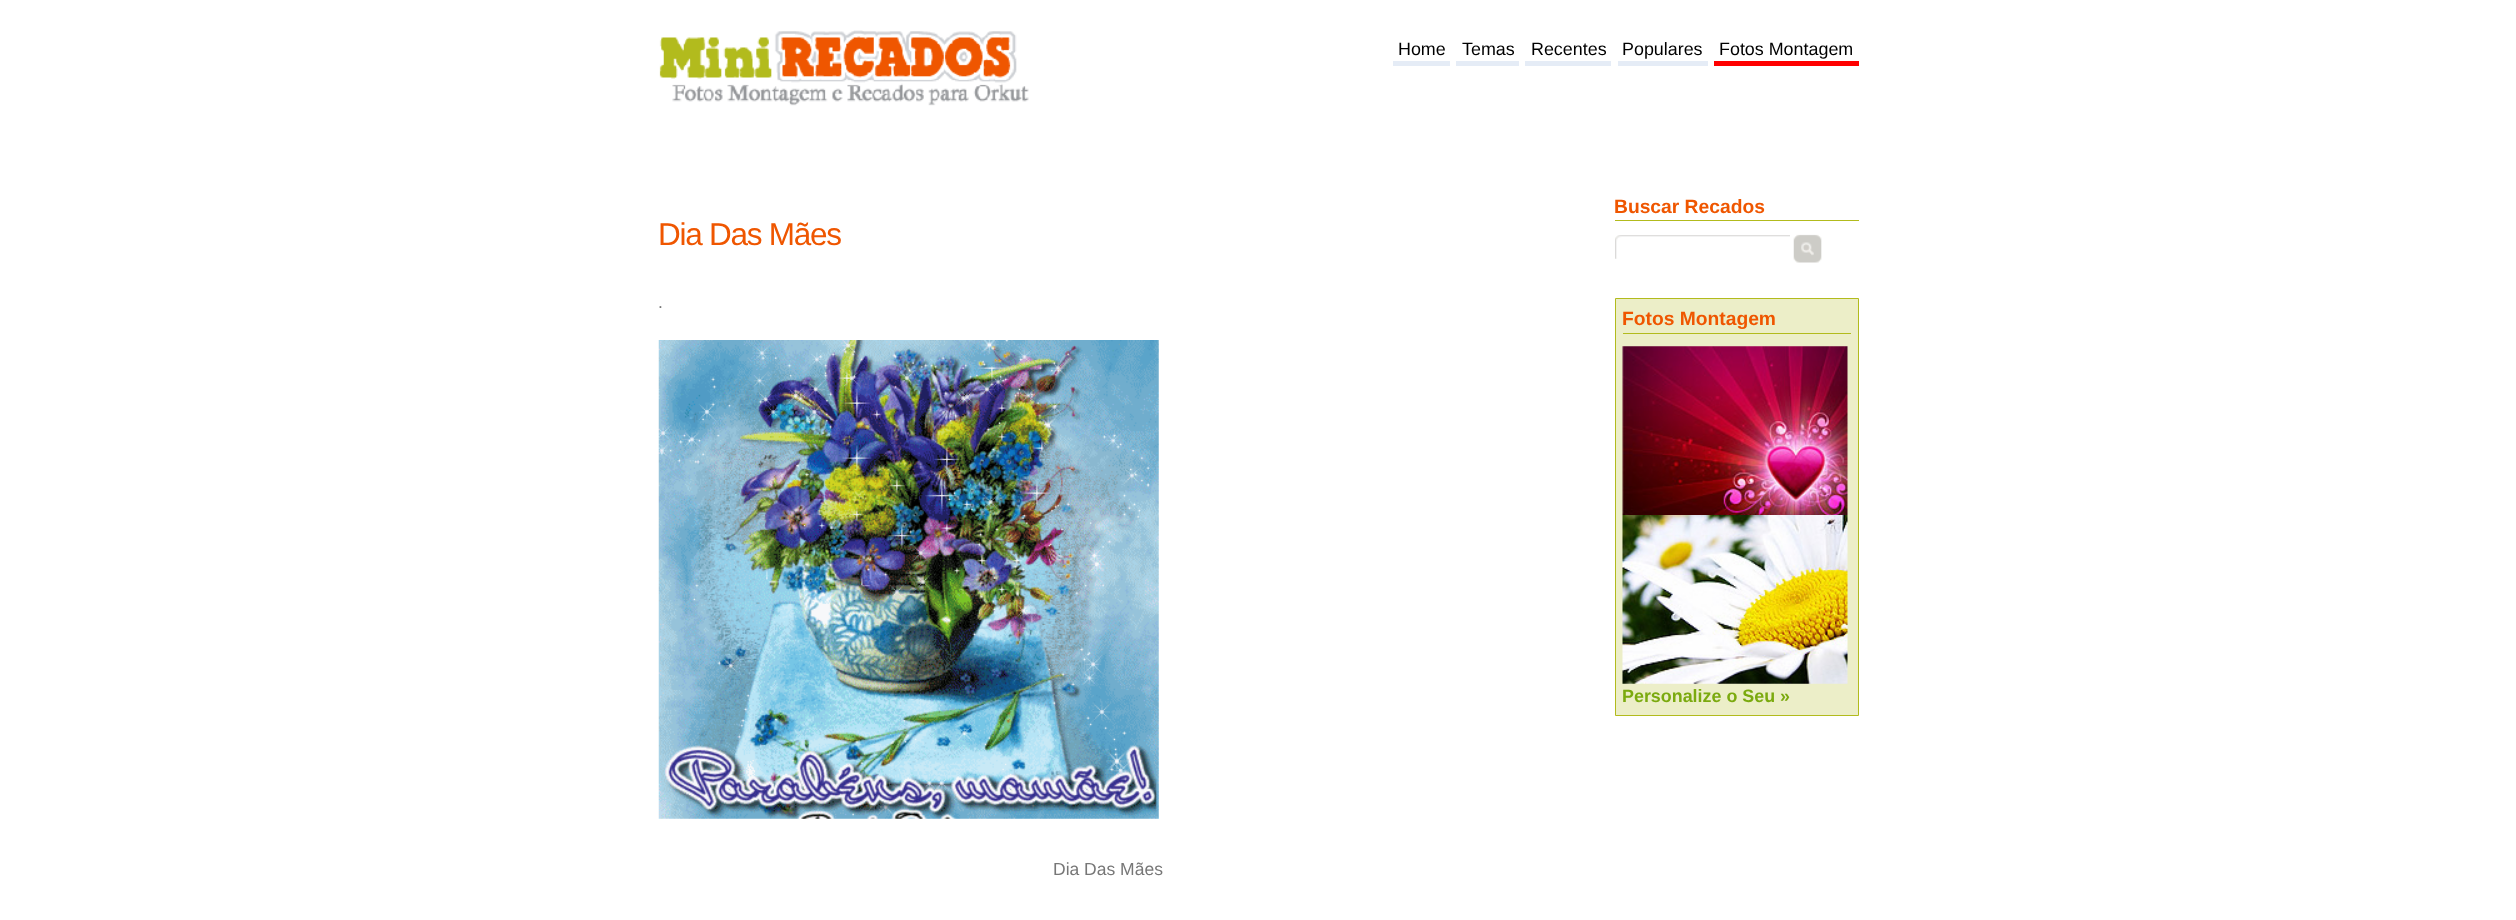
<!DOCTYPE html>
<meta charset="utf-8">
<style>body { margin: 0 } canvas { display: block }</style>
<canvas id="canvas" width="2516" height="920"></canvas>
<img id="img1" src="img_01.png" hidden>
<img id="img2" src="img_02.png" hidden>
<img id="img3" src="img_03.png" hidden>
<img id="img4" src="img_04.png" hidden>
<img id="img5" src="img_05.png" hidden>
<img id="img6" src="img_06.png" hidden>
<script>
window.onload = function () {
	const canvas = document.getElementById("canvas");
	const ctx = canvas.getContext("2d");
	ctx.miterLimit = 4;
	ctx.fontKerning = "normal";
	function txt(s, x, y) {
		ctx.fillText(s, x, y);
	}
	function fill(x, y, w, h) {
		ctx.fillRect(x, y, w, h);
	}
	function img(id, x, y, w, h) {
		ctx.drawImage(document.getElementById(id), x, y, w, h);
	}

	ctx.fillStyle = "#FFFFFF";
	fill(0, 0, 2516, 920);
	img("img1", 659, 30, 370, 76);
	ctx.fillStyle = "#E5ECF6";
	fill(1393, 61, 57, 5);
	fill(1456, 61, 63, 5);
	fill(1525, 61, 86, 5);
	fill(1618, 61, 90, 5);
	ctx.fillStyle = "#FF0000";
	fill(1714, 61, 145, 5);
	img("img2", 658, 340, 501, 479);
	ctx.fillStyle = "#B2BB1D";
	fill(1615, 220, 244, 1);
	img("img3", 1615, 235, 175, 24);
	img("img4", 1793, 234, 31, 31);
	ctx.fillStyle = "#ECEEC8";
	ctx.beginPath();
	ctx.rect(1615.5, 298.5, 243, 417);
	ctx.fill();
	ctx.strokeStyle = "#B2BB1D";
	ctx.stroke();
	ctx.fillStyle = "#B2BB1D";
	fill(1623, 333, 228, 1);
	img("img5", 1622, 346, 226, 169);
	img("img6", 1622, 515, 226, 169);
	ctx.font = "17.9px Liberation Sans";
	ctx.fillStyle = "#000000";
	txt("Home", 1398, 55);
	txt("Temas", 1462, 55);
	txt("Recentes", 1531, 55);
	txt("Populares", 1622, 55);
	txt("Fotos Montagem", 1719, 55);
	ctx.letterSpacing = "-1.25px";
	ctx.font = "31.5px Liberation Sans";
	ctx.fillStyle = "#EF5600";
	txt("Dia Das Mães", 658, 245);
	ctx.letterSpacing = "0px";
	ctx.font = "17.5px Liberation Sans";
	ctx.fillStyle = "#777777";
	txt(".", 658, 308);
	txt("Dia Das Mães", 1053, 875);
	ctx.font = "bold 19.25px Liberation Sans";
	ctx.fillStyle = "#EF5600";
	txt("Buscar Recados", 1614, 213);
	txt("Fotos Montagem", 1622, 325);
	ctx.font = "bold 17.9px Liberation Sans";
	ctx.fillStyle = "#7BAA0F";
	txt("Personalize o Seu »", 1622, 702);
};
</script>
